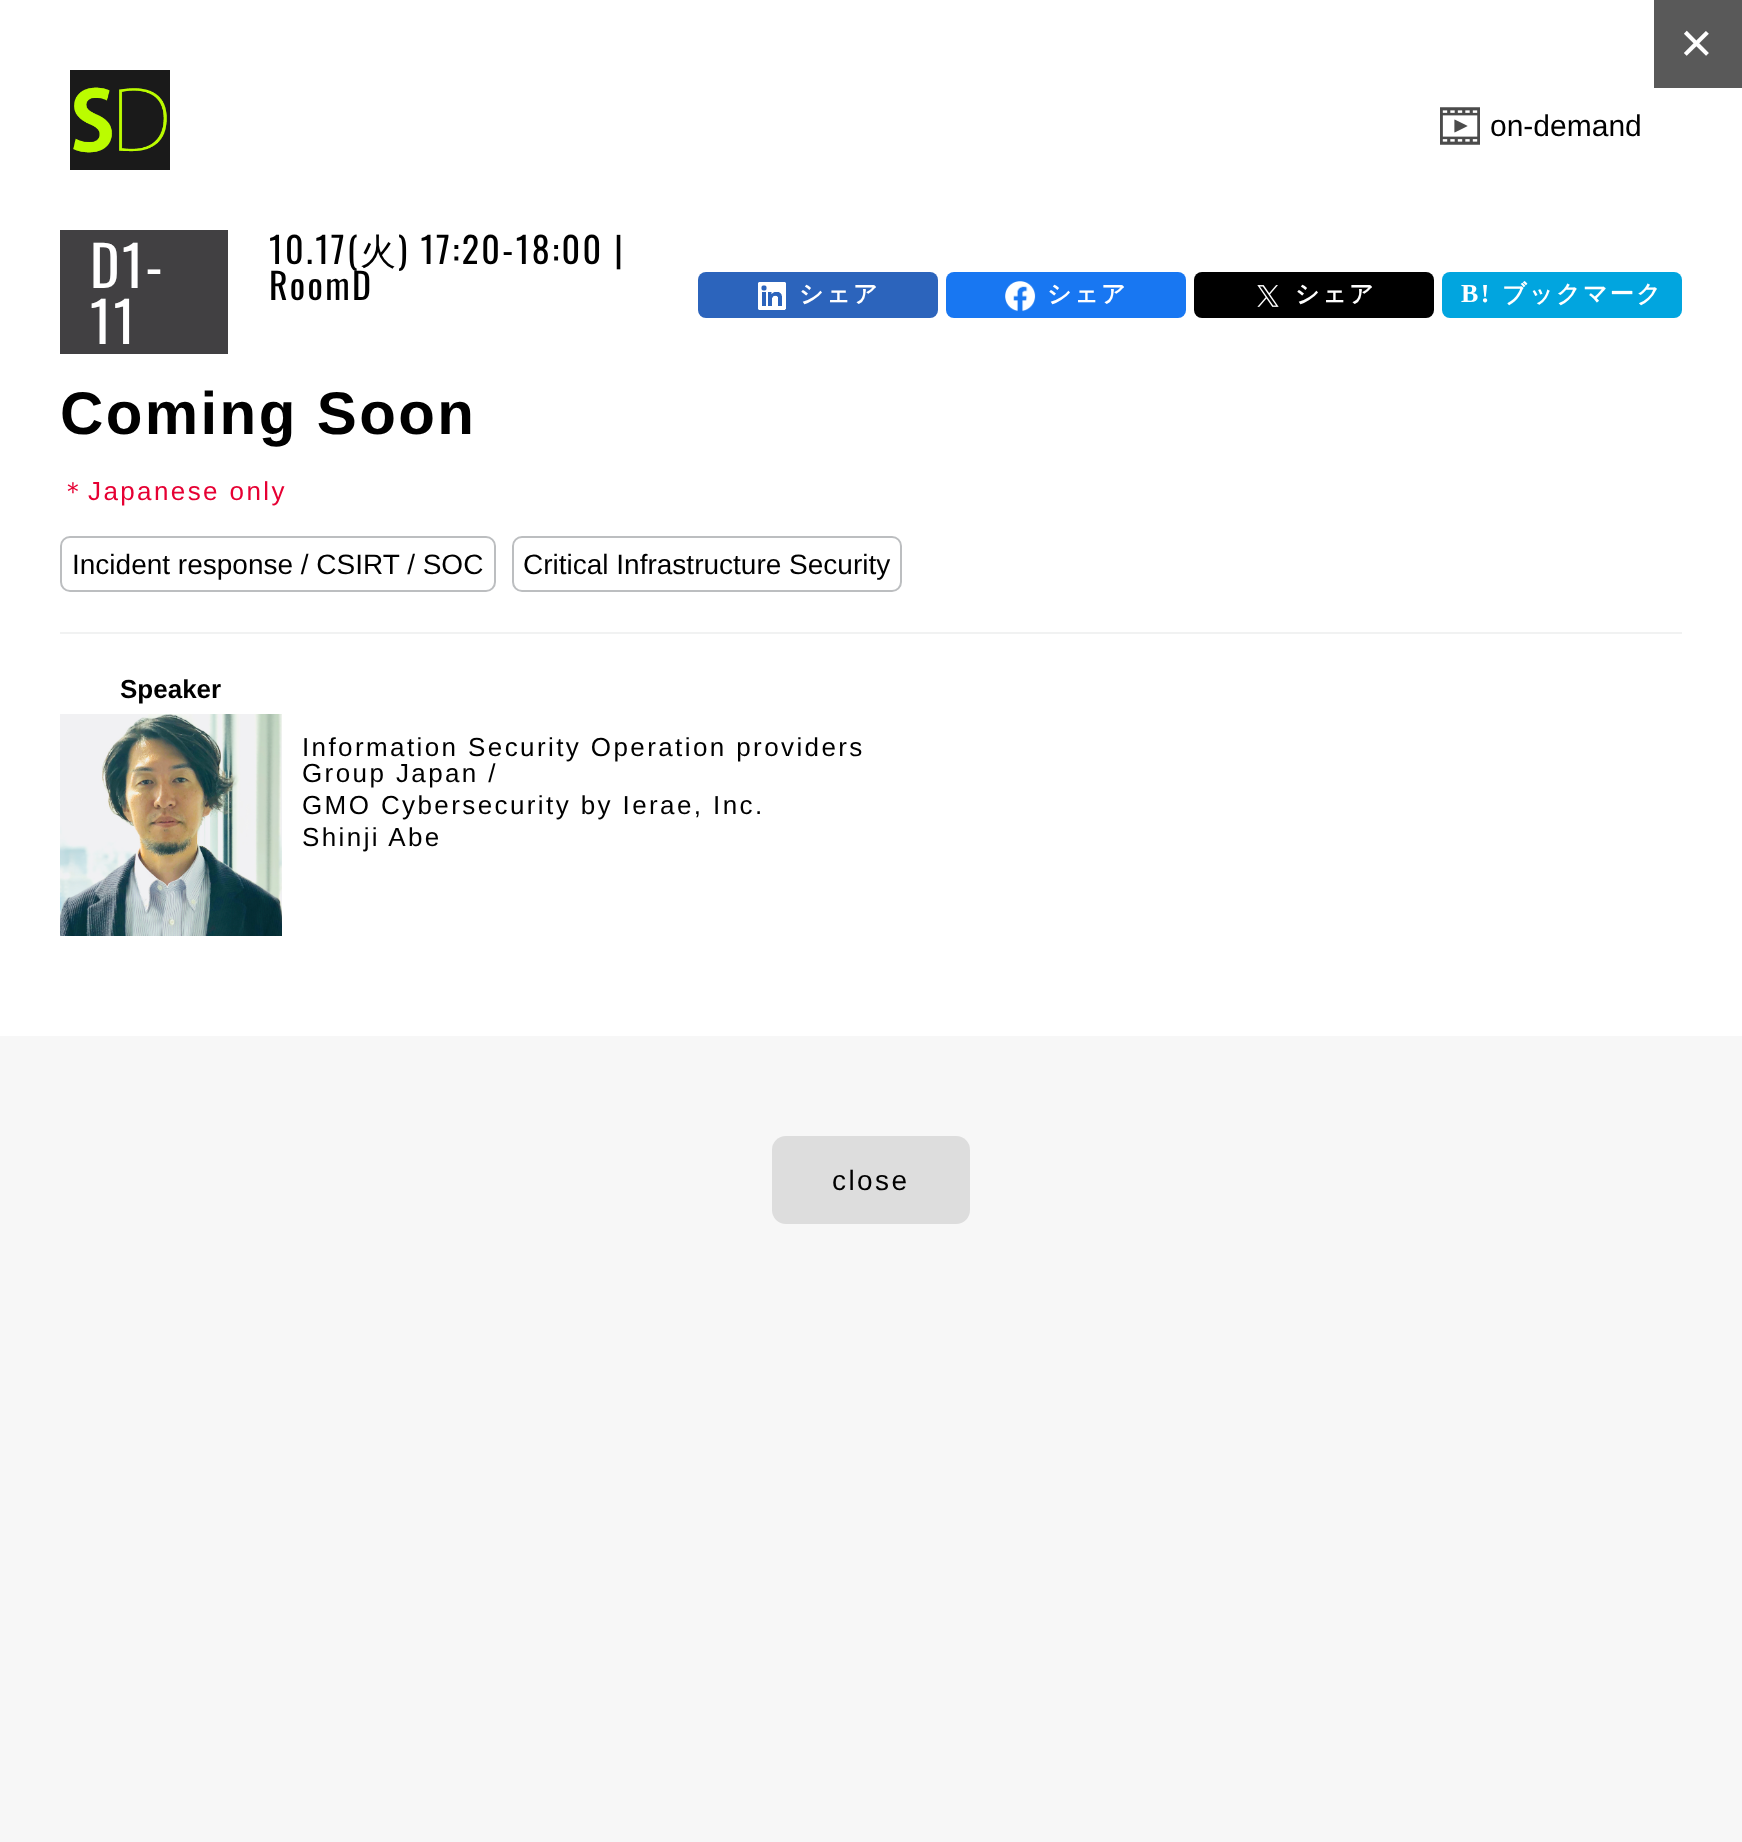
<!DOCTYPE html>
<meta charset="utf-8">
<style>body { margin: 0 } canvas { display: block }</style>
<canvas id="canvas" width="1742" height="1842"></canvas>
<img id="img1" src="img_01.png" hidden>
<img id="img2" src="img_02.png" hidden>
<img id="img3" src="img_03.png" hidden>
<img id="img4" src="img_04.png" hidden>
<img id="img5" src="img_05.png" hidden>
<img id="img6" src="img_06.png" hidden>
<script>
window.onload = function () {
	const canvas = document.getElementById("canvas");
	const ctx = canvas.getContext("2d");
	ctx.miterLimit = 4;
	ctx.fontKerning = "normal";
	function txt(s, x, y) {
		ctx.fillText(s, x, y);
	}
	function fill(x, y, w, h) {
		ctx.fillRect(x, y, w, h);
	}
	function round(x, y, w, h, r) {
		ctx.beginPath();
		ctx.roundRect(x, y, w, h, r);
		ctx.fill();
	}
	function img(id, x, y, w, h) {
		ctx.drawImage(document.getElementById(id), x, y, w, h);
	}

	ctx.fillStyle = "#F7F7F7";
	fill(0, 0, 1742, 1842);
	ctx.fillStyle = "#FFFFFF";
	fill(0, 0, 1742, 1036);
	ctx.fillStyle = "#595959";
	fill(1654, 0, 88, 88);
	ctx.fillStyle = "#414042";
	fill(60, 230, 168, 124);
	ctx.fillStyle = "#2C64BC";
	round(698, 272, 240, 46, 8);
	img("img1", 758, 282, 28, 28);
	ctx.fillStyle = "#1877F2";
	round(946, 272, 240, 46, 8);
	img("img2", 1005, 281, 31, 31);
	ctx.fillStyle = "#000000";
	round(1194, 272, 240, 46, 8);
	img("img3", 1257, 285, 22, 22);
	ctx.fillStyle = "#01A5DF";
	round(1442, 272, 240, 46, 8);
	img("img4", 70, 70, 100, 100);
	img("img5", 1440, 107, 40, 38);
	ctx.beginPath();
	ctx.roundRect(61, 537, 434, 54, 9);
	ctx.strokeStyle = "#BCBEC0";
	ctx.lineWidth = 2;
	ctx.stroke();
	ctx.beginPath();
	ctx.roundRect(513, 537, 388, 54, 9);
	ctx.stroke();
	ctx.fillStyle = "#F1F2F2";
	fill(60, 632, 1622, 2);
	img("img6", 60, 714, 222, 222);
	ctx.fillStyle = "#DDDDDD";
	round(772, 1136, 198, 88, 14);
	ctx.letterSpacing = "2.4px";
	ctx.font = "56px Liberation Sans";
	ctx.fillStyle = "#FFFFFF";
	txt("×", 1680, 62);
	ctx.font = "56px Oswald";
	txt("D1-", 90, 288);
	txt("11", 90, 344);
	ctx.font = "36px Oswald";
	ctx.fillStyle = "#000000";
	txt("10.17(", 269, 264);
	ctx.font = "500 36px WenQuanYi Zen Hei";
	txt("火", 360, 264);
	ctx.font = "36px Oswald";
	txt(") 17:20-18:00 |", 398, 264);
	txt("RoomD", 269, 300);
	ctx.font = "bold 24px WenQuanYi Zen Hei";
	ctx.fillStyle = "#FFFFFF";
	txt("シェア", 799, 302);
	txt("シェア", 1047, 302);
	txt("シェア", 1295, 302);
	ctx.font = "bold 26px Liberation Serif";
	txt("B!", 1461, 302);
	ctx.font = "bold 24px WenQuanYi Zen Hei";
	txt("ブックマーク", 1502, 302);
	ctx.letterSpacing = "0px";
	ctx.font = "30px Liberation Sans";
	ctx.fillStyle = "#000000";
	txt("on-demand", 1490, 136);
	ctx.letterSpacing = "2.4px";
	ctx.font = "bold 60px Liberation Sans";
	txt("Coming Soon", 60, 434);
	ctx.font = "500 26px WenQuanYi Zen Hei";
	ctx.fillStyle = "#E60033";
	txt("＊", 60, 500);
	ctx.font = "26px Liberation Sans";
	txt("Japanese only", 88, 500);
	ctx.letterSpacing = "0px";
	ctx.font = "28px Liberation Sans";
	ctx.fillStyle = "#000000";
	txt("Incident response / CSIRT / SOC", 72, 574);
	txt("Critical Infrastructure Security", 523, 574);
	ctx.font = "bold 26px Liberation Sans";
	txt("Speaker", 120, 698);
	ctx.letterSpacing = "2.4px";
	ctx.font = "26px Liberation Sans";
	txt("Information Security Operation providers", 302, 756);
	txt("Group Japan /", 302, 782);
	txt("GMO Cybersecurity by Ierae, Inc.", 302, 814);
	txt("Shinji Abe", 302, 846);
	ctx.font = "28px Liberation Sans";
	txt("close", 832, 1190);
};
</script>
